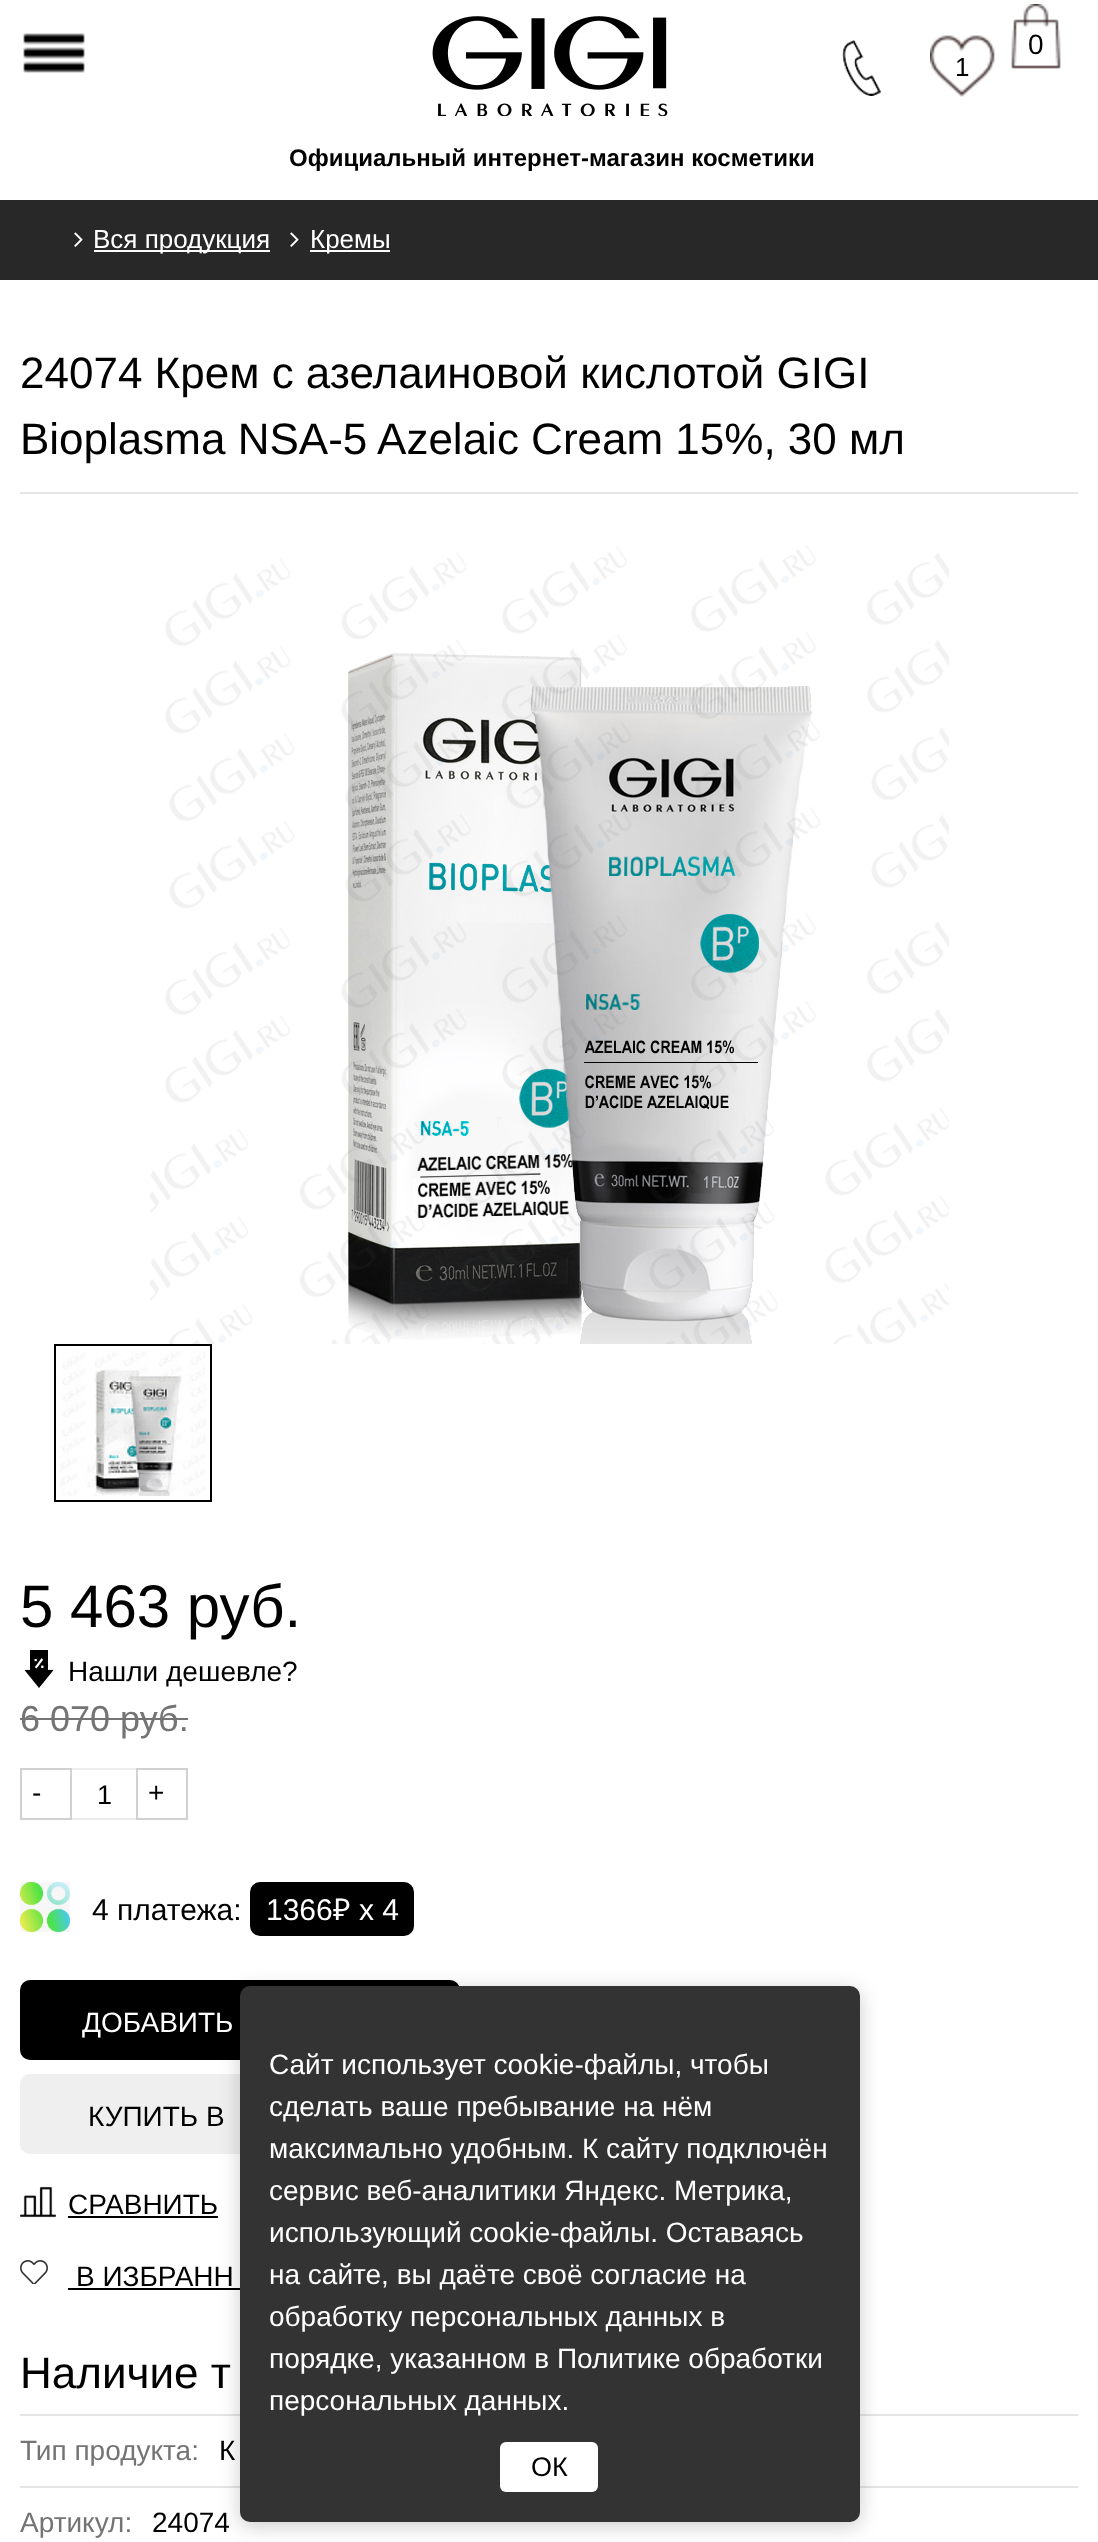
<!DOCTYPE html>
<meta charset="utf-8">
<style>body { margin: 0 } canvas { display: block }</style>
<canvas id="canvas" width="1098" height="2542"></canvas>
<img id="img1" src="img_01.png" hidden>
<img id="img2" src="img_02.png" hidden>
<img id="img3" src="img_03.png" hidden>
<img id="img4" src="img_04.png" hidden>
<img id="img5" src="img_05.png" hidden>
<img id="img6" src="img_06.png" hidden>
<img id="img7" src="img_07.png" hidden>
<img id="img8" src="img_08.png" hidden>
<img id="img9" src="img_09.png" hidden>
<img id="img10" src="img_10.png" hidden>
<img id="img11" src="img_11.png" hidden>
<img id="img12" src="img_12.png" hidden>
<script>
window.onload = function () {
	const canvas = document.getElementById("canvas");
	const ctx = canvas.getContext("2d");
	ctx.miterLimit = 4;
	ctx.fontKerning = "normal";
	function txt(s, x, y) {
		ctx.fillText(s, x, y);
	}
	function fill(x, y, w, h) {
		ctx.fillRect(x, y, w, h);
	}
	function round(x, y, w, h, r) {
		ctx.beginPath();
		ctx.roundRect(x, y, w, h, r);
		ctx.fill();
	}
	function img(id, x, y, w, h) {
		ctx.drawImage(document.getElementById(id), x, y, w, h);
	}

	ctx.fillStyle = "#FFFFFF";
	fill(0, 0, 1098, 2542);
	img("img1", 23, 33, 62, 40);
	img("img2", 842, 40, 40, 56);
	img("img3", 1011, 4, 50, 65);
	img("img4", 930, 35, 65, 62);
	img("img5", 432, 16, 236, 100);
	ctx.fillStyle = "#282828";
	fill(0, 200, 1098, 80);
	img("img6", 74, 232, 9, 15);
	ctx.fillStyle = "#FFFFFF";
	fill(94, 250, 176, 2);
	img("img6", 290, 232, 9, 15);
	fill(310, 250, 80, 2);
	ctx.fillStyle = "#E5E5E5";
	fill(20, 492, 1058, 2);
	img("img7", 150, 545, 799, 799);
	ctx.strokeStyle = "#000000";
	ctx.lineWidth = 2;
	ctx.strokeRect(55, 1345, 156, 156);
	img("img8", 60, 1351, 146, 145);
	img("img9", 24, 1650, 30, 38);
	ctx.fillStyle = "#747474";
	fill(20, 1718, 168, 2);
	ctx.strokeStyle = "#D1D1D1";
	ctx.strokeRect(21, 1769, 50, 50);
	ctx.fillStyle = "#EDEDED";
	fill(72, 1768, 64, 2);
	fill(72, 1818, 64, 2);
	ctx.strokeRect(137, 1769, 50, 50);
	img("img10", 20, 1882, 50, 50);
	ctx.fillStyle = "#000000";
	round(250, 1882, 164, 54, 10);
	ctx.beginPath();
	ctx.roundRect(20, 1980, 440, 80, [10, 10, 50, 10]);
	ctx.fill();
	ctx.fillStyle = "#EFEFEF";
	round(20, 2074, 440, 80, 10);
	img("img11", 20, 2186, 36, 32);
	ctx.fillStyle = "#000000";
	fill(68, 2216, 150, 2);
	img("img12", 20, 2260, 28, 24);
	fill(68, 2288, 172, 2);
	ctx.fillStyle = "#E5E5E5";
	fill(20, 2414, 1058, 2);
	fill(20, 2486, 1058, 2);
	ctx.fillStyle = "rgba(0, 0, 0, 0.2)";
	ctx.filter = "blur(10px)";
	ctx.beginPath();
	ctx.roundRect(240, 1990, 620, 536, 10);
	ctx.fill();
	ctx.filter = "none";
	ctx.fillStyle = "#333333";
	round(240, 1986, 620, 536, 10);
	ctx.fillStyle = "#FFFFFF";
	round(500, 2442, 98, 50, 6);
	ctx.font = "28px Liberation Sans";
	ctx.fillStyle = "#000000";
	txt("0", 1028, 54);
	ctx.font = "26px Liberation Sans";
	txt("1", 955, 76);
	ctx.font = "bold 24px Liberation Sans";
	txt("Официальный интернет-магазин косметики", 289, 166);
	ctx.font = "26px Liberation Sans";
	ctx.fillStyle = "#FFFFFF";
	txt("Вся продукция", 93, 248);
	txt("Кремы", 310, 248);
	ctx.font = "44px Liberation Sans";
	ctx.fillStyle = "#000000";
	txt("24074 Крем с азелаиновой кислотой GIGI", 20, 388);
	txt("Bioplasma NSA-5 Azelaic Cream 15%, 30 мл", 20, 454);
	ctx.font = "60px Liberation Sans";
	txt("5 463 руб.", 20, 1627);
	ctx.font = "28px Liberation Sans";
	txt("Нашли дешевле?", 68, 1681);
	ctx.font = "36px Liberation Sans";
	ctx.fillStyle = "#747474";
	txt("6 070 руб.", 20, 1731);
	ctx.font = "28px Liberation Sans";
	ctx.fillStyle = "#000000";
	txt("-", 32, 1802);
	ctx.font = "27px Liberation Sans";
	txt("1", 97, 1804);
	ctx.font = "28px Liberation Sans";
	txt("+", 148, 1802);
	ctx.font = "30px Liberation Sans";
	txt("4 платежа:", 92, 1920);
	ctx.fillStyle = "#FFFFFF";
	txt("1366", 266, 1920);
	ctx.font = "30px Noto Sans";
	txt("₽", 333, 1920);
	ctx.font = "30px Liberation Sans";
	txt("х 4", 359, 1920);
	ctx.font = "28px Liberation Sans";
	txt("ДОБАВИТЬ", 82, 2032);
	ctx.fillStyle = "#000000";
	txt("КУПИТЬ В", 88, 2126);
	txt("СРАВНИТЬ", 68, 2214);
	txt("В ИЗБРАНН", 76, 2286);
	ctx.font = "44px Liberation Sans";
	txt("Наличие т", 20, 2388);
	ctx.font = "28px Liberation Sans";
	ctx.fillStyle = "#747474";
	txt("Тип продукта:", 20, 2460);
	ctx.fillStyle = "#000000";
	txt("К", 219, 2460);
	ctx.fillStyle = "#747474";
	txt("Артикул:", 20, 2532);
	ctx.fillStyle = "#000000";
	txt("24074", 152, 2532);
	ctx.fillStyle = "#FFFFFF";
	txt("Сайт использует cookie-файлы, чтобы", 269, 2074);
	txt("сделать ваше пребывание на нём", 269, 2116);
	txt("максимально удобным. К сайту подключён", 269, 2158);
	txt("сервис веб-аналитики Яндекс. Метрика,", 269, 2200);
	txt("использующий cookie-файлы. Оставаясь", 269, 2242);
	txt("на сайте, вы даёте своё согласие на", 269, 2284);
	txt("обработку персональных данных в", 269, 2326);
	txt("порядке, указанном в Политике обработки", 269, 2368);
	txt("персональных данных.", 269, 2410);
	ctx.font = "27px Liberation Sans";
	ctx.fillStyle = "#000000";
	txt("ОК", 531, 2476);
};
</script>
